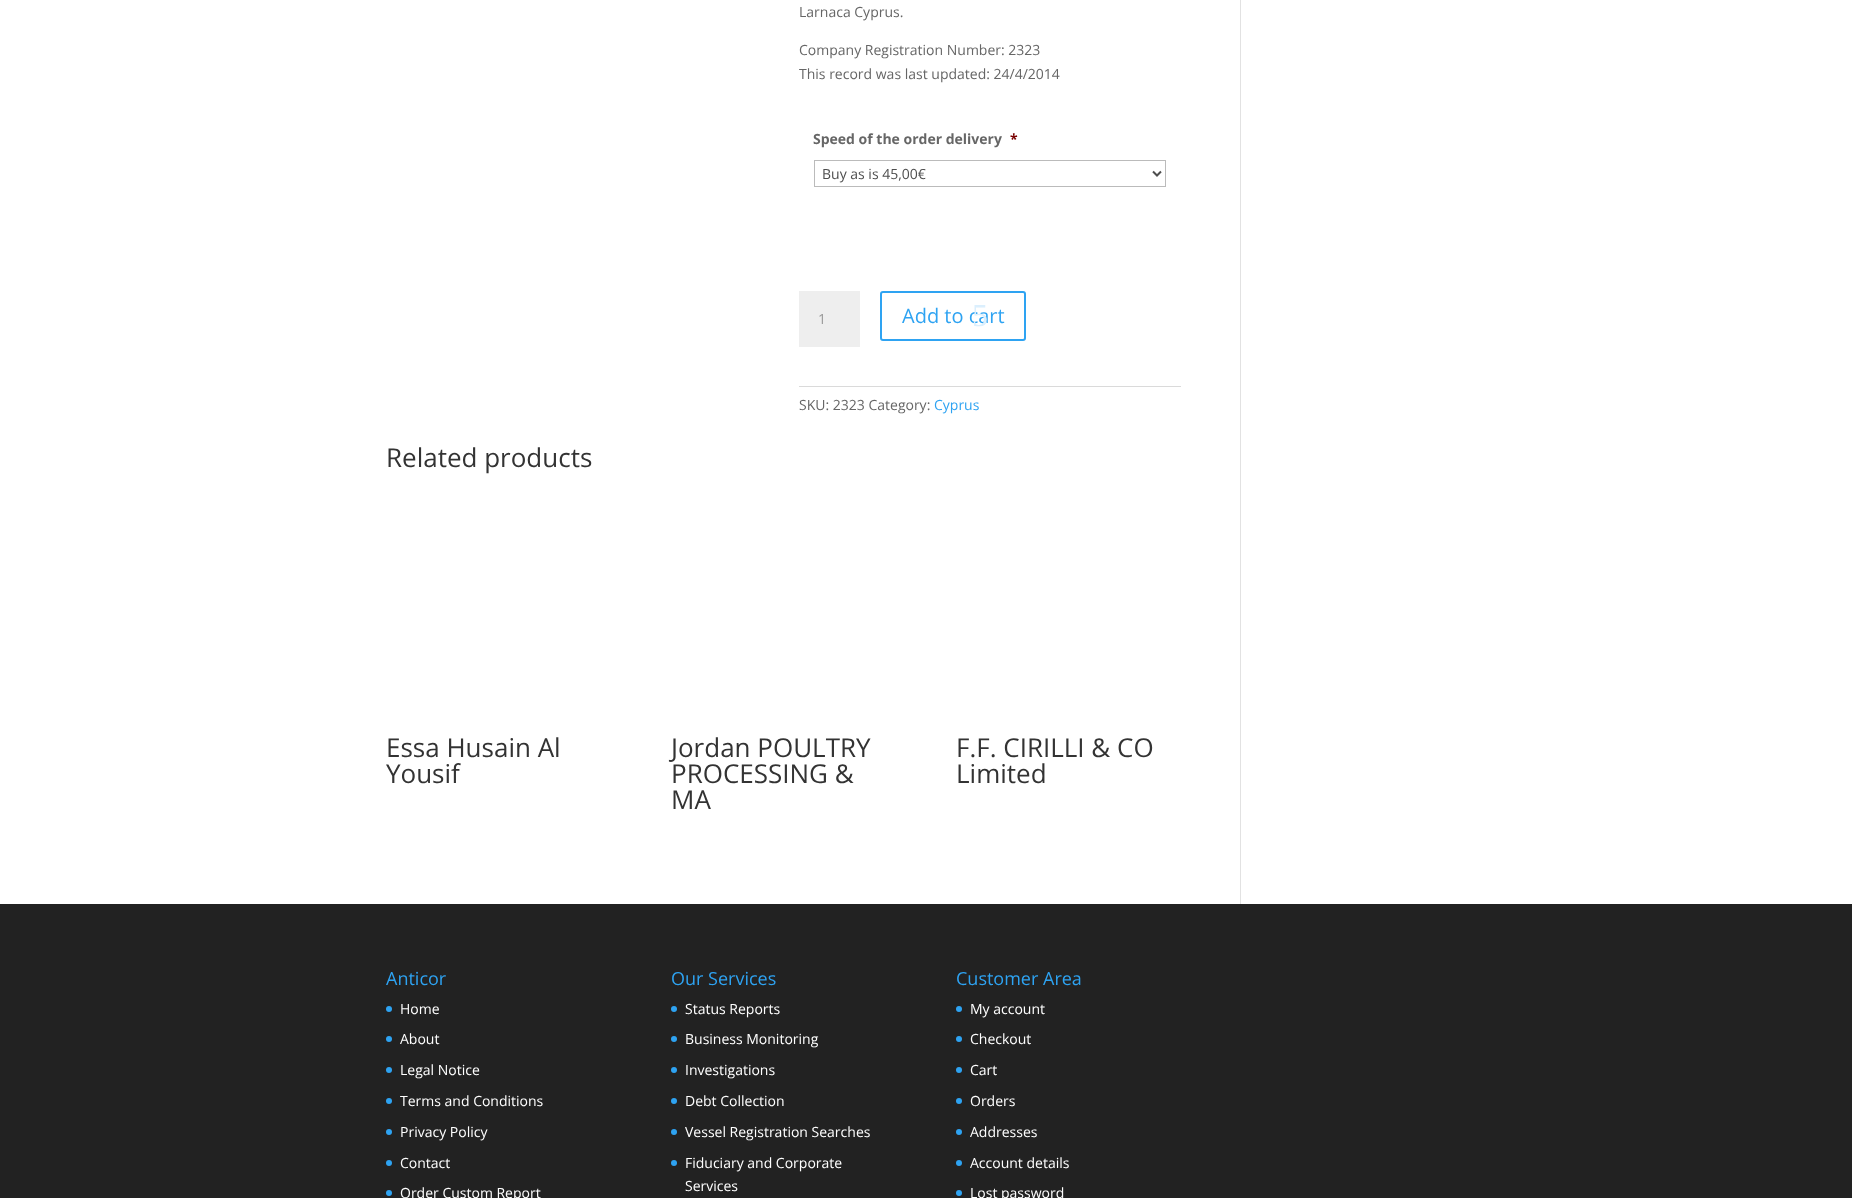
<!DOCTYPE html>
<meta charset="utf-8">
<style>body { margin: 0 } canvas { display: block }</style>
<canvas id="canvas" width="1852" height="1198"></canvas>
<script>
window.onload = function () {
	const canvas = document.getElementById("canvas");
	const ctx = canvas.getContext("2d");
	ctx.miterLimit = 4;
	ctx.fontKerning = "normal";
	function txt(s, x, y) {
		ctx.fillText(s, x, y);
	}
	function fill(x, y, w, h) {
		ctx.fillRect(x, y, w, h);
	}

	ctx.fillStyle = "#FFFFFF";
	fill(0, 0, 1852, 1198);
	ctx.strokeStyle = "#BBBBBB";
	ctx.strokeRect(814.5, 160.5, 351, 26);
	ctx.beginPath();
	ctx.moveTo(1153, 171.5);
	ctx.lineTo(1157, 175.5);
	ctx.lineTo(1161, 171.5);
	ctx.strokeStyle = "#4E4E4E";
	ctx.lineWidth = 2;
	ctx.stroke();
	ctx.fillStyle = "#EEEEEE";
	fill(799, 291, 61, 56);
	ctx.beginPath();
	ctx.roundRect(881, 292, 144, 48, 2);
	ctx.strokeStyle = "#2EA3F2";
	ctx.stroke();
	ctx.fillStyle = "#DADADA";
	fill(799, 386, 382, 1);
	ctx.fillStyle = "#E2E2E2";
	fill(1240, 0, 1, 904);
	ctx.fillStyle = "#222222";
	fill(0, 904, 1852, 294);
	ctx.fillStyle = "#2EA3F2";
	ctx.beginPath();
	ctx.arc(389, 1009, 3, 0, Math.PI * 2);
	ctx.fill();
	ctx.beginPath();
	ctx.arc(389, 1039, 3, 0, Math.PI * 2);
	ctx.fill();
	ctx.beginPath();
	ctx.arc(389, 1070, 3, 0, Math.PI * 2);
	ctx.fill();
	ctx.beginPath();
	ctx.arc(389, 1101, 3, 0, Math.PI * 2);
	ctx.fill();
	ctx.beginPath();
	ctx.arc(389, 1132, 3, 0, Math.PI * 2);
	ctx.fill();
	ctx.beginPath();
	ctx.arc(389, 1163, 3, 0, Math.PI * 2);
	ctx.fill();
	ctx.beginPath();
	ctx.arc(389, 1193, 3, 0, Math.PI * 2);
	ctx.fill();
	ctx.beginPath();
	ctx.arc(674, 1009, 3, 0, Math.PI * 2);
	ctx.fill();
	ctx.beginPath();
	ctx.arc(674, 1039, 3, 0, Math.PI * 2);
	ctx.fill();
	ctx.beginPath();
	ctx.arc(674, 1070, 3, 0, Math.PI * 2);
	ctx.fill();
	ctx.beginPath();
	ctx.arc(674, 1101, 3, 0, Math.PI * 2);
	ctx.fill();
	ctx.beginPath();
	ctx.arc(674, 1132, 3, 0, Math.PI * 2);
	ctx.fill();
	ctx.beginPath();
	ctx.arc(674, 1163, 3, 0, Math.PI * 2);
	ctx.fill();
	ctx.beginPath();
	ctx.arc(959, 1009, 3, 0, Math.PI * 2);
	ctx.fill();
	ctx.beginPath();
	ctx.arc(959, 1039, 3, 0, Math.PI * 2);
	ctx.fill();
	ctx.beginPath();
	ctx.arc(959, 1070, 3, 0, Math.PI * 2);
	ctx.fill();
	ctx.beginPath();
	ctx.arc(959, 1101, 3, 0, Math.PI * 2);
	ctx.fill();
	ctx.beginPath();
	ctx.arc(959, 1132, 3, 0, Math.PI * 2);
	ctx.fill();
	ctx.beginPath();
	ctx.arc(959, 1163, 3, 0, Math.PI * 2);
	ctx.fill();
	ctx.beginPath();
	ctx.arc(959, 1193, 3, 0, Math.PI * 2);
	ctx.fill();
	ctx.font = "14px Open Sans";
	ctx.fillStyle = "#666666";
	txt("Larnaca Cyprus.", 799, 17);
	txt("Company Registration Number: 2323", 799, 55);
	txt("This record was last updated: 24/4/2014", 799, 79);
	ctx.font = "bold 14px Open Sans";
	txt("Speed of the order delivery", 813, 144);
	ctx.fillStyle = "#790000";
	txt("*", 1010, 144);
	ctx.font = "14px Open Sans";
	ctx.fillStyle = "#4E4E4E";
	txt("Buy as is 45,00€", 822, 179);
	ctx.fillStyle = "#999999";
	txt("1", 818, 324);
	ctx.font = "20px Open Sans";
	ctx.fillStyle = "#2EA3F2";
	txt("Add to cart", 902, 323);
	ctx.font = "32px Liberation Serif";
	ctx.fillStyle = "#DBEFFD";
	txt("5", 972, 326);
	ctx.font = "14px Open Sans";
	ctx.fillStyle = "#666666";
	txt("SKU: 2323 Category:", 799, 410);
	ctx.fillStyle = "#2EA3F2";
	txt("Cyprus", 934, 410);
	ctx.font = "26px Open Sans";
	ctx.fillStyle = "#333333";
	txt("Related products", 386, 467);
	txt("Essa Husain Al", 386, 757);
	txt("Yousif", 386, 783);
	txt("Jordan POULTRY", 671, 757);
	txt("PROCESSING &", 671, 783);
	txt("MA", 671, 809);
	txt("F.F. CIRILLI & CO", 956, 757);
	txt("Limited", 956, 783);
	ctx.font = "18px Open Sans";
	ctx.fillStyle = "#2EA3F2";
	txt("Anticor", 386, 985);
	ctx.font = "14px Open Sans";
	ctx.fillStyle = "#FFFFFF";
	txt("Home", 400, 1014);
	txt("About", 400, 1044);
	txt("Legal Notice", 400, 1075);
	txt("Terms and Conditions", 400, 1106);
	txt("Privacy Policy", 400, 1137);
	txt("Contact", 400, 1168);
	txt("Order Custom Report", 400, 1198);
	ctx.font = "18px Open Sans";
	ctx.fillStyle = "#2EA3F2";
	txt("Our Services", 671, 985);
	ctx.font = "14px Open Sans";
	ctx.fillStyle = "#FFFFFF";
	txt("Status Reports", 685, 1014);
	txt("Business Monitoring", 685, 1044);
	txt("Investigations", 685, 1075);
	txt("Debt Collection", 685, 1106);
	txt("Vessel Registration Searches", 685, 1137);
	txt("Fiduciary and Corporate", 685, 1168);
	txt("Services", 685, 1191);
	ctx.font = "18px Open Sans";
	ctx.fillStyle = "#2EA3F2";
	txt("Customer Area", 956, 985);
	ctx.font = "14px Open Sans";
	ctx.fillStyle = "#FFFFFF";
	txt("My account", 970, 1014);
	txt("Checkout", 970, 1044);
	txt("Cart", 970, 1075);
	txt("Orders", 970, 1106);
	txt("Addresses", 970, 1137);
	txt("Account details", 970, 1168);
	txt("Lost password", 970, 1198);
};
</script>
